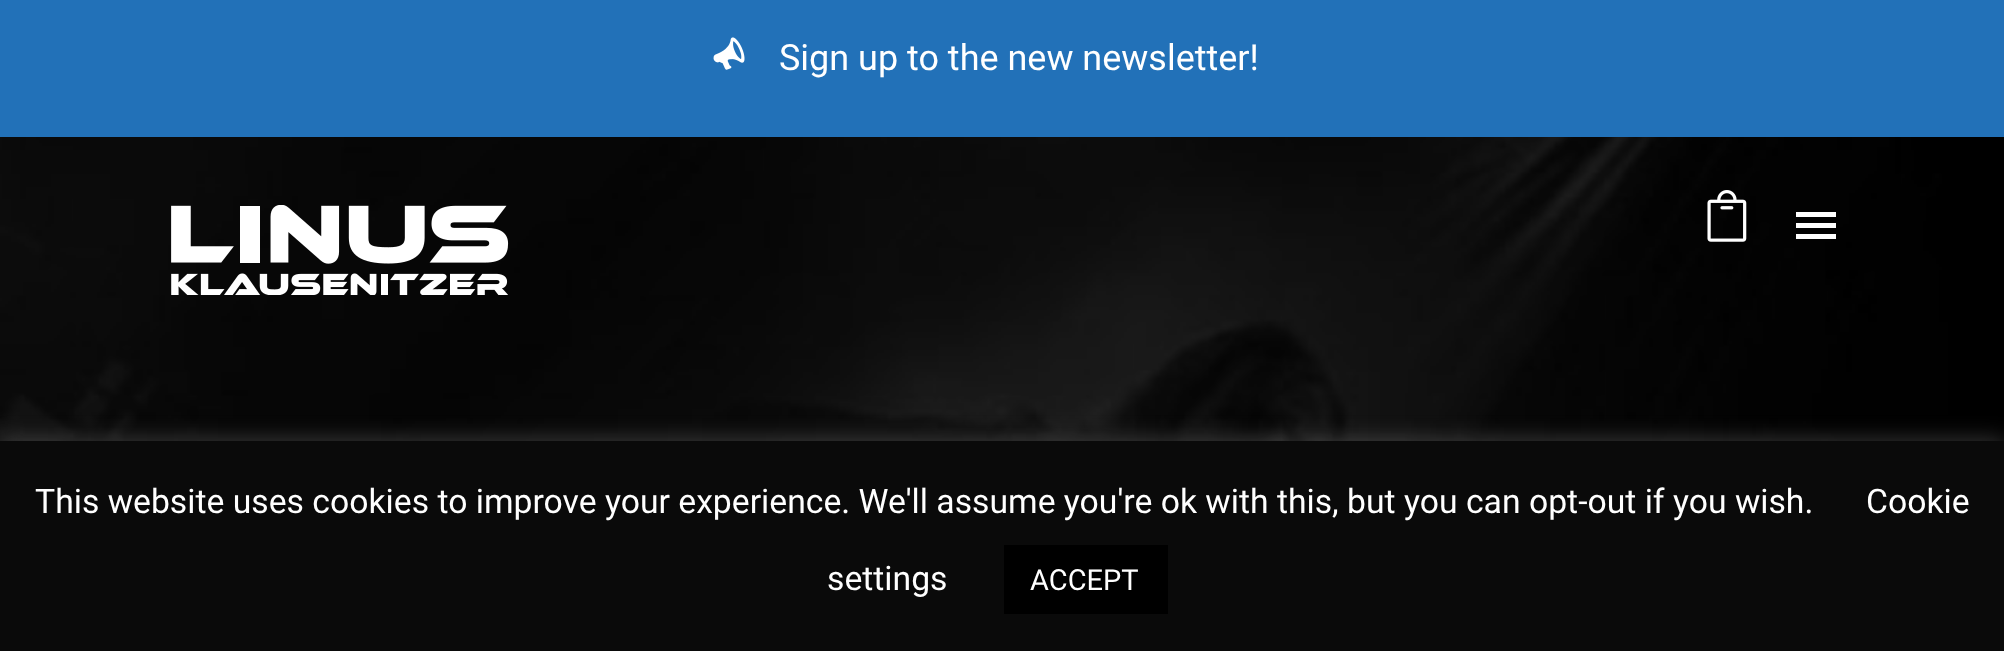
<!DOCTYPE html>
<meta charset="utf-8">
<style>body { margin: 0 } canvas { display: block }</style>
<canvas id="canvas" width="2004" height="651"></canvas>
<img id="img1" src="img_01.png" hidden>
<img id="img2" src="img_02.png" hidden>
<img id="img3" src="img_03.png" hidden>
<img id="img4" src="img_04.png" hidden>
<script>
window.onload = function () {
	const canvas = document.getElementById("canvas");
	const ctx = canvas.getContext("2d");
	ctx.miterLimit = 4;
	ctx.fontKerning = "normal";
	function txt(s, x, y) {
		ctx.fillText(s, x, y);
	}
	function fill(x, y, w, h) {
		ctx.fillRect(x, y, w, h);
	}
	function img(id, x, y, w, h) {
		ctx.drawImage(document.getElementById(id), x, y, w, h);
	}

	ctx.fillStyle = "#FFFFFF";
	fill(0, 0, 2004, 651);
	img("img1", 0, 137, 2004, 304);
	ctx.fillStyle = "#2271B8";
	fill(0, 0, 2004, 137);
	img("img2", 713, 37, 32, 33);
	img("img3", 171, 205, 338, 90);
	img("img4", 1707, 190, 40, 52);
	ctx.fillStyle = "#FFFFFF";
	fill(1796, 212, 40, 5);
	fill(1796, 223, 40, 5);
	fill(1796, 234, 40, 5);
	ctx.fillStyle = "rgba(172, 171, 171, 0.3)";
	ctx.filter = "blur(11px)";
	ctx.beginPath();
	ctx.rect(0, 439, 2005, 211);
	ctx.fill();
	ctx.filter = "none";
	ctx.fillStyle = "#0A0A0A";
	fill(0, 441, 2004, 210);
	ctx.fillStyle = "#000000";
	fill(1004, 545, 164, 69);
	ctx.font = "36px Roboto";
	ctx.fillStyle = "#FFFFFF";
	txt("Sign up to the new newsletter!", 779, 70);
	ctx.font = "33.75px Roboto";
	txt("This website uses cookies to improve your experience. We'll assume you're ok with this, but you can opt-out if you wish.", 35, 513);
	txt("Cookie", 1866, 513);
	txt("settings", 827, 590);
	ctx.font = "29px Roboto";
	txt("ACCEPT", 1030, 590);
};
</script>
